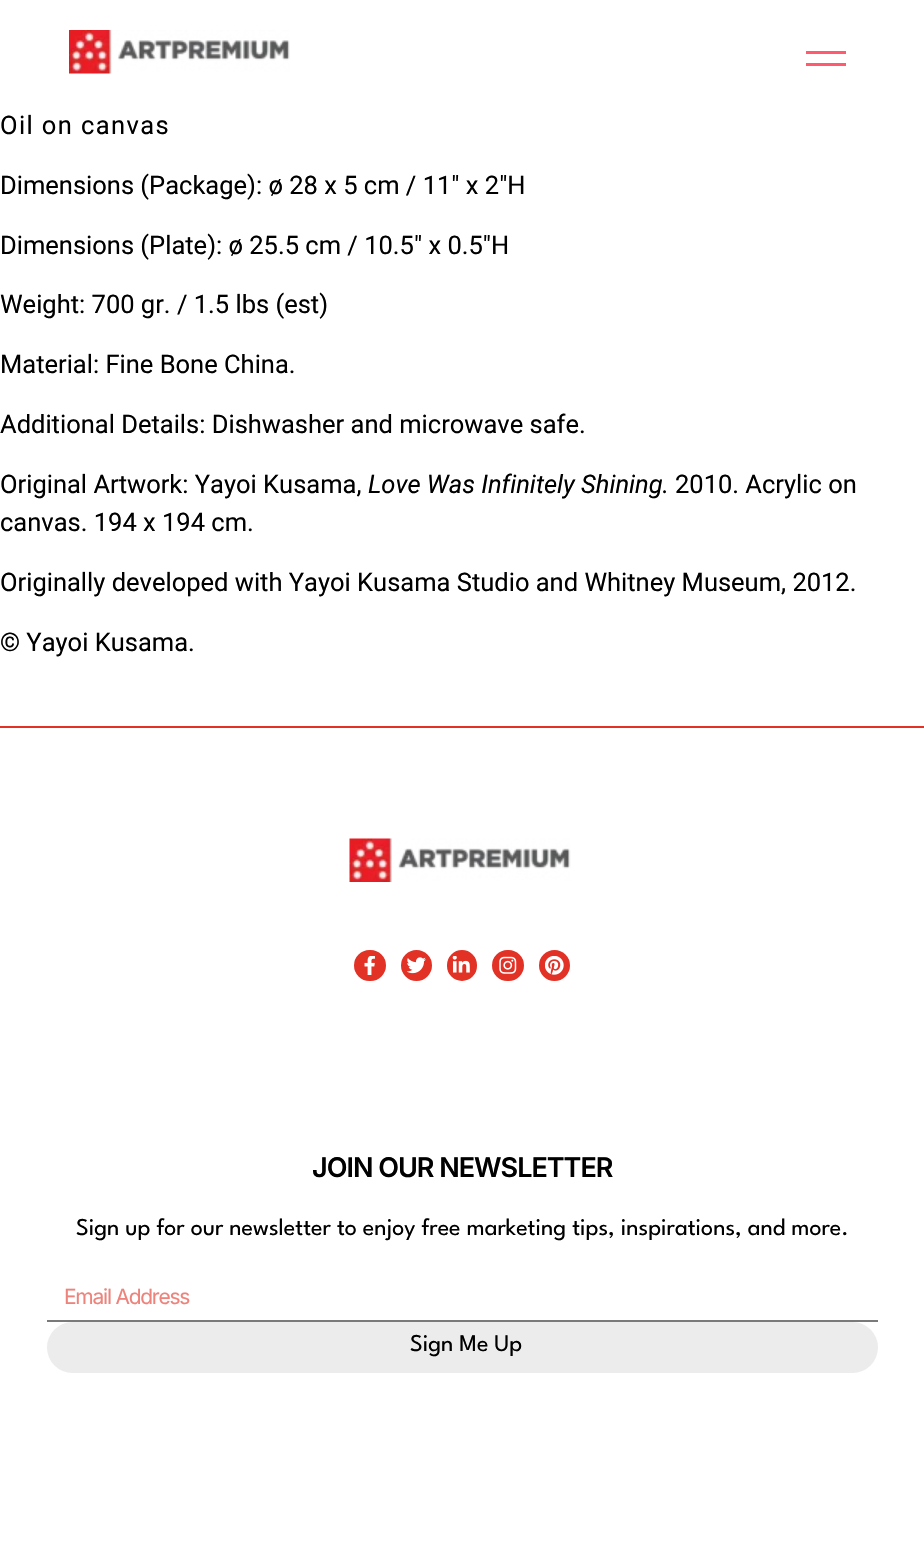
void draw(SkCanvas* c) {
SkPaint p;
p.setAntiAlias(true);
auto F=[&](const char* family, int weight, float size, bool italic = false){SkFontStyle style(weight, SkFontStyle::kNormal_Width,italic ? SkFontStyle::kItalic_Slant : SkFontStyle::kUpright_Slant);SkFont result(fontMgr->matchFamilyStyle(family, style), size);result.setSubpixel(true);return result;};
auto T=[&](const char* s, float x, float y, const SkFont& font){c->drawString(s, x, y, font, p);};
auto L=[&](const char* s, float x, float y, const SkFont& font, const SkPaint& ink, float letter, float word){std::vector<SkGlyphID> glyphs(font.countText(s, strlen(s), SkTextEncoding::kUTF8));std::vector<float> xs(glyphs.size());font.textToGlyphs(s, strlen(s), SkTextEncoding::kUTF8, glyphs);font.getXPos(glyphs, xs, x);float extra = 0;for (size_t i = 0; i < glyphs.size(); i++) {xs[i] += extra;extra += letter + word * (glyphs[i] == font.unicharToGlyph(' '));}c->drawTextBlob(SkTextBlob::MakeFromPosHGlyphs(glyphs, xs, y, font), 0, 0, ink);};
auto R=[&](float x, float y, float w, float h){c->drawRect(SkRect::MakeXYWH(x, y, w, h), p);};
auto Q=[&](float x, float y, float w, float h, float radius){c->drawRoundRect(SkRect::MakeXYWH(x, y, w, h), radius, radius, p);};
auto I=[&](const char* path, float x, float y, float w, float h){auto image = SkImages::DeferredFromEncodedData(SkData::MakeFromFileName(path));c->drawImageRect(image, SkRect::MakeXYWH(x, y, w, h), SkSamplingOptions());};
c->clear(0xffffffff);
I("1.png",69,30,221,44);
p.setColor(0xffff5a6e);
R(806,51,40,3);
R(806,63,40,3);
auto f1 = F("Roboto",400,25.5);
p.setColor(0xff000000);
L("Oil on canvas",0,134,f1,p,1.4,0);
T("Dimensions (Package): ø 28 x 5 cm / 11″ x 2″H",0,194,f1);
T("Dimensions (Plate): ø 25.5 cm / 10.5″ x 0.5″H",0,254,f1);
T("Weight: 700 gr. / 1.5 lbs (est)",0,313,f1);
T("Material: Fine Bone China.",0,373,f1);
T("Additional Details: Dishwasher and microwave safe.",0,433,f1);
T("Original Artwork: Yayoi Kusama,",0,493,f1);
auto f2 = F("Roboto",400,25.5,true);
T("Love Was Infinitely Shining.",368,493,f2);
T("2010. Acrylic on",675,493,f1);
T("canvas. 194 x 194 cm.",0,531,f1);
T("Originally developed with Yayoi Kusama Studio and Whitney Museum, 2012.",0,591,f1);
T("© Yayoi Kusama.",0,651,f1);
p.setColor(0xffe23125);
R(0,726,924,2);
I("2.png",349,838,222,44);
c->drawRoundRect(SkRect::MakeXYWH(355,951,30,29),14.5,14.5,p);
p.setStroke(true);
p.setStrokeWidth(2);
c->drawRoundRect(SkRect::MakeXYWH(355,951,30,29),14.5,14.5,p);
I("3.png",364,956,11,19);
p.setStroke(false);
c->drawCircle(416.5,965.5,14.5,p);
p.setStroke(true);
c->drawCircle(416.5,965.5,14.5,p);
I("4.png",407,957,19,17);
p.setStroke(false);
c->drawRoundRect(SkRect::MakeXYWH(448,951,28,29),14,14,p);
p.setStroke(true);
c->drawRoundRect(SkRect::MakeXYWH(448,951,28,29),14,14,p);
I("5.png",452,956,18,17);
p.setStroke(false);
c->drawRoundRect(SkRect::MakeXYWH(493,951,30,29),14.5,14.5,p);
p.setStroke(true);
c->drawRoundRect(SkRect::MakeXYWH(493,951,30,29),14.5,14.5,p);
I("6.png",499,956,18,18);
p.setStroke(false);
c->drawCircle(554.5,965.5,14.5,p);
p.setStroke(true);
c->drawCircle(554.5,965.5,14.5,p);
I("7.png",545,956,19,19);
auto f3 = F("Inter",600,27);
p.setStroke(false);
p.setColor(0xff000000);
L("JOIN OUR NEWSLETTER",312,1177,f3,p,-1,0);
auto f4 = F("League Spartan",400,24);
T("Sign up for our newsletter to enjoy free marketing tips, inspirations, and more.",76,1235,f4);
p.setColor(0xff7a7a7a);
R(47,1320,831,2);
auto f5 = F("Inter",400,21);
p.setColor(0xffed837b);
L("Email Address",64,1304,f5,p,-1.25,0);
p.setColor(0xffececec);
Q(47,1322,831,51,25.5);
p.setColor(0xff000000);
T("Sign Me Up",410,1351,f4);
}
